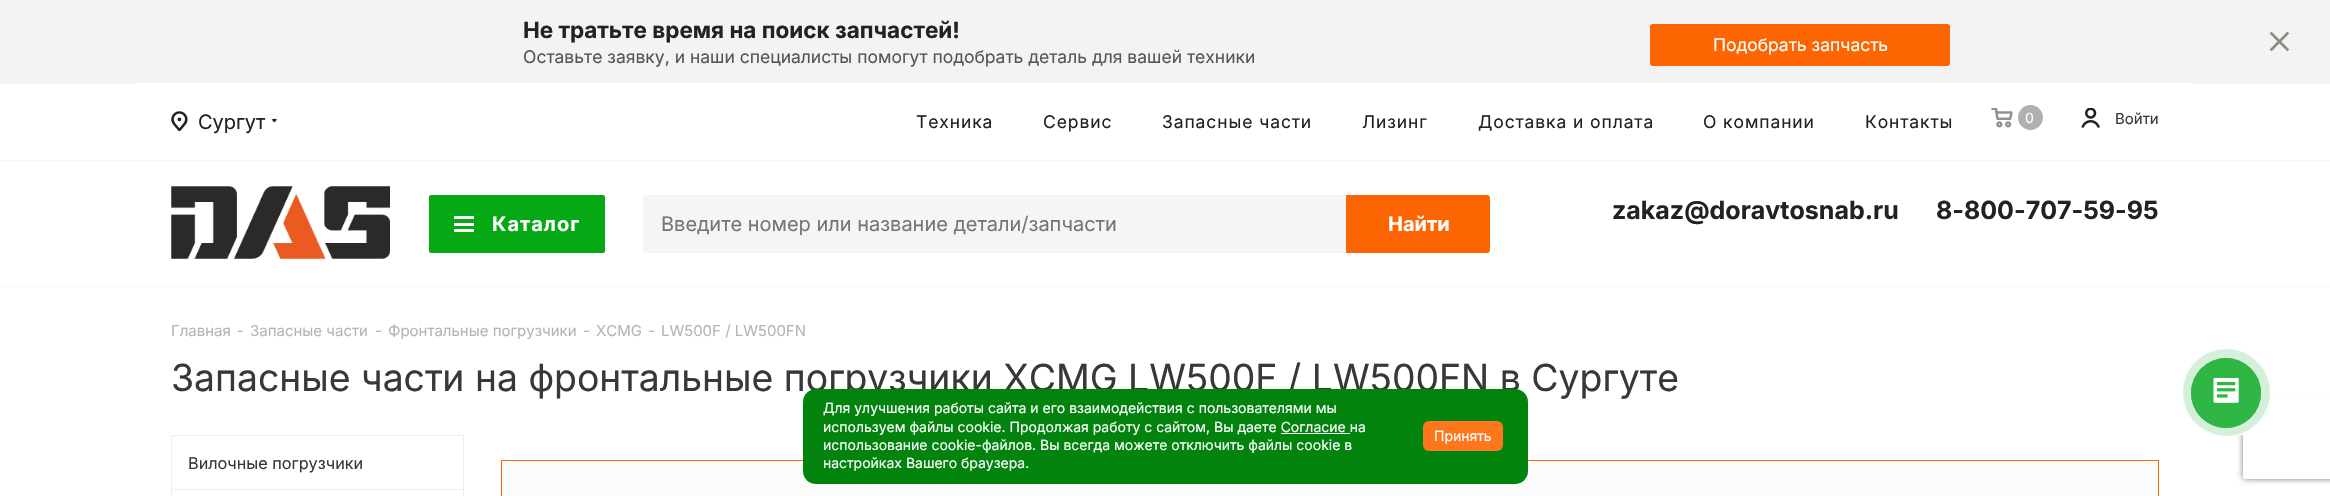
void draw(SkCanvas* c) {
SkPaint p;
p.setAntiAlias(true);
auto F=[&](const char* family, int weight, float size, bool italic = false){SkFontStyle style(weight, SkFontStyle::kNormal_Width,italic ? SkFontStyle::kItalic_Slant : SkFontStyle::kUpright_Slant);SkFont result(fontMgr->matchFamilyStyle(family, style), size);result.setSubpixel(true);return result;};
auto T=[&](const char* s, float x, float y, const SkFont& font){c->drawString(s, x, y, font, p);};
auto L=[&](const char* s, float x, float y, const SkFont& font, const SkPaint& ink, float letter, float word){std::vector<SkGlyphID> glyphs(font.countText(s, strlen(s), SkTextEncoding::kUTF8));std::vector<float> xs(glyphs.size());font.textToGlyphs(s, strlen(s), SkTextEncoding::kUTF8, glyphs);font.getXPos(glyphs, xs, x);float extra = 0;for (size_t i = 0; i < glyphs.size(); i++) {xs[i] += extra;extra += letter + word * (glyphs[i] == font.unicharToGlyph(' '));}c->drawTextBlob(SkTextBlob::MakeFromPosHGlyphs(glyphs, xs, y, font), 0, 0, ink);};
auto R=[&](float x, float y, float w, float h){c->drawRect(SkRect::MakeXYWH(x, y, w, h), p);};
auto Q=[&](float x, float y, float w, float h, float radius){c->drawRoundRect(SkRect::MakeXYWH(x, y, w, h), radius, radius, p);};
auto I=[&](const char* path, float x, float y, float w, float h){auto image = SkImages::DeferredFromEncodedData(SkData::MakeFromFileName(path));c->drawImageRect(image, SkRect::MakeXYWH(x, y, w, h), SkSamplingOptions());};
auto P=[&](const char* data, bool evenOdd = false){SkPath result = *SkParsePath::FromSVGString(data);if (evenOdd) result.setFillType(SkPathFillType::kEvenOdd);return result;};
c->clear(0xffffffff);
p.setColor(0xfff3f3f3);
R(0,0,2330,84);
auto f1 = F("Inter",700,22.5);
p.setColor(0xff222222);
T("Не тратьте время на поиск запчастей!",523,38,f1);
auto f2 = F("Inter",400,17.5);
p.setColor(0xff555555);
T("Оставьте заявку, и наши специалисты помогут подобрать деталь для вашей техники",523,63,f2);
p.setColor(0xfffc6501);
c->drawRoundRect(SkRect::MakeXYWH(1650.5,24.5,299,41),2,2,p);
p.setStroke(true);
p.setStrokeWidth(1);
c->drawRoundRect(SkRect::MakeXYWH(1650.5,24.5,299,41),2,2,p);
p.setStroke(false);
p.setColor(0xffffffff);
T("Подобрать запчасть",1713,51,f2);
auto f3 = F("Inter",300,44);
p.setColor(0xff8b8b83);
T("×",2265,54,f3);
p.setColor(0xfff6f6f6);
R(0,160,2330,1);
p.setColor(0xffffffff);
R(134,83,2062,1);
I("1.png",171,111,17,20);
auto f4 = F("Inter",400,20);
p.setColor(0xff222222);
T("Сургут",198,129,f4);
I("2.png",271,118,6,5);
L("Техника",916,128,f2,p,.9,0);
L("Сервис",1043,128,f2,p,.9,0);
L("Запасные части",1162,128,f2,p,.9,0);
L("Лизинг",1362,128,f2,p,.9,0);
L("Доставка и оплата",1478,128,f2,p,.9,0);
L("О компании",1703,128,f2,p,.9,0);
L("Контакты",1865,128,f2,p,.9,0);
I("3.png",1991,108,22,20);
p.setColor(0xffb0b0b0);
c->drawCircle(2030.5,117.5,12.5,p);
auto f5 = F("Inter",400,14);
p.setColor(0xffffffff);
T("0",2025,123,f5);
I("4.png",2081,108,19,20);
auto f6 = F("Inter",400,15);
p.setColor(0xff383838);
T("Войти",2115,124,f6);
p.setColor(0xfff6f6f6);
R(0,286,2330,1);
I("5.png",171,186,219,73);
auto f7 = F("Inter",700,25);
p.setColor(0xff222222);
T("zakaz@doravtosnab.ru",1612,219,f7);
T("8-800-707-59-95",1936,219,f7);
p.setColor(0xff06a816);
Q(429,195,176,58,2.5);
p.setColor(0xffffffff);
R(454,216,20,3);
R(454,223,20,3);
R(454,229,20,3);
auto f8 = F("Inter",700,20);
L("Каталог",492,231,f8,p,1,0);
p.setColor(0xfff5f5f5);
c->drawPath(P("M645.5 195h844.5v58h-844.5c-1.5 0-2.5-1-2.5-2.5v-53c0-1.5 1-2.5 2.5-2.5z"),p);
p.setColor(0xff757575);
T("Введите номер или название детали/запчасти",661,231,f4);
p.setColor(0xfffc6501);
c->drawPath(P("M1346.5 195.5h141c1 0 2 1 2 2v53c0 1-1 2-2 2h-141z"),p);
p.setStroke(true);
c->drawPath(P("M1346.5 195.5h141c1 0 2 1 2 2v53c0 1-1 2-2 2h-141z"),p);
p.setStroke(false);
p.setColor(0xffffffff);
T("Найти",1388,231,f8);
c->save();
c->clipPath(P("M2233 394h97v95h-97zm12.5 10h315c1.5 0 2.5 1 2.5 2.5v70c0 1.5-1 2.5-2.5 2.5h-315c-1.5 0-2.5-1-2.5-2.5v-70c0-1.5 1-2.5 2.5-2.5z",true),true);
p.setColor(0xff808080);
p.setMaskFilter(SkMaskFilter::MakeBlur(kNormal_SkBlurStyle, 3));
c->drawRoundRect(SkRect::MakeXYWH(2243,404,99,75),2.5,2.5,p);
p.setMaskFilter(nullptr);
c->restore();
p.setColor(0xffffffff);
R(2237,398,93,37);
p.setColor(0xffb6b5b5);
T("Главная",171,336,f6);
T("-",237,336,f6);
T("Запасные части",250,336,f6);
T("-",375,336,f6);
T("Фронтальные погрузчики",388,336,f6);
T("-",583,336,f6);
T("XCMG",596,336,f6);
T("-",648,336,f6);
T("LW500F / LW500FN",661,336,f6);
auto f9 = F("Inter",400,37.35);
p.setColor(0xff383838);
T("Запасные части на фронтальные погрузчики XCMG LW500F / LW500FN в Сургуте",171,391,f9);
p.setColor(0xffebeef1);
R(171,435,293,1);
R(463,435,1,55);
R(171,435,1,55);
auto f10 = F("Inter",400,16.25);
p.setColor(0xff383838);
T("Вилочные погрузчики",188,469,f10);
p.setColor(0xffebeef1);
R(171,489,293,1);
R(463,489,1,7);
R(171,489,1,7);
p.setColor(0xfffbfbfb);
c->drawRect(SkRect::MakeXYWH(501.5,460.5,1657,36),p);
p.setStroke(true);
p.setColor(0xfffc6501);
c->drawRect(SkRect::MakeXYWH(501.5,460.5,1657,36),p);
p.setStroke(false);
p.setColor(0xff02830e);
Q(803,389,725,95,13);
p.setColor(0xffffffff);
T("Для улучшения работы сайта и его взаимодействия с пользователями мы",823,413,f5);
T("используем файлы cookie. Продолжая работу с сайтом, Вы даете Согласие на",823,432,f5);
R(1281,433,69,1);
T("использование cookie-файлов. Вы всегда можете отключить файлы cookie в",823,450,f5);
T("настройках Вашего браузера.",823,468,f5);
p.setColor(0xfffe771d);
Q(1423,421,80,30,6);
p.setColor(0xffffffff);
T("Принять",1434,441,f5);
p.setColor(0xffd5f0da);
c->drawCircle(2226.5,392.5,43.5,p);
p.setStroke(true);
p.setColor(0xff2fb644);
c->drawCircle(2226,393,34.5,p);
p.setStroke(false);
c->drawCircle(2226,393,35,p);
I("6.png",2213,378,26,25);
}
